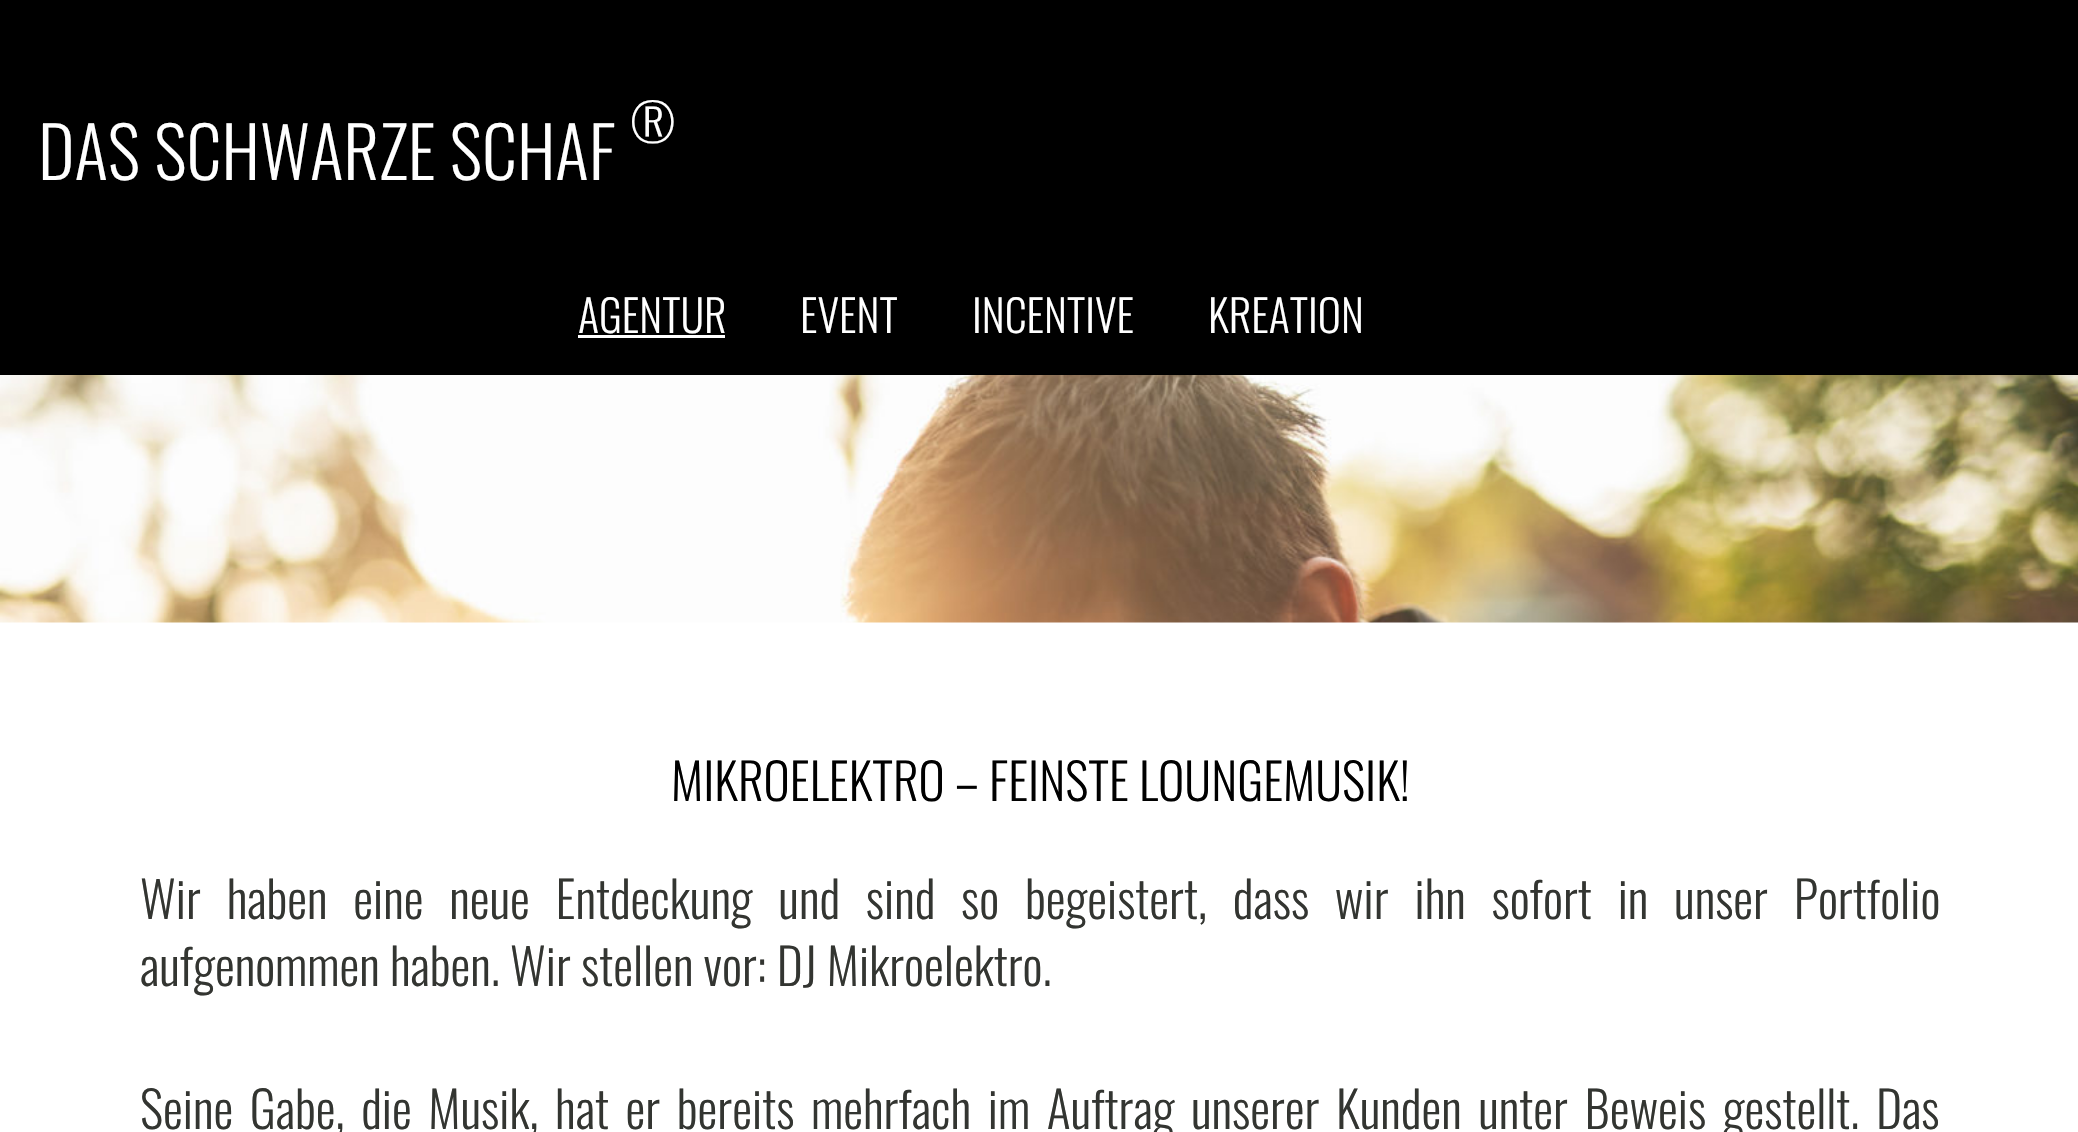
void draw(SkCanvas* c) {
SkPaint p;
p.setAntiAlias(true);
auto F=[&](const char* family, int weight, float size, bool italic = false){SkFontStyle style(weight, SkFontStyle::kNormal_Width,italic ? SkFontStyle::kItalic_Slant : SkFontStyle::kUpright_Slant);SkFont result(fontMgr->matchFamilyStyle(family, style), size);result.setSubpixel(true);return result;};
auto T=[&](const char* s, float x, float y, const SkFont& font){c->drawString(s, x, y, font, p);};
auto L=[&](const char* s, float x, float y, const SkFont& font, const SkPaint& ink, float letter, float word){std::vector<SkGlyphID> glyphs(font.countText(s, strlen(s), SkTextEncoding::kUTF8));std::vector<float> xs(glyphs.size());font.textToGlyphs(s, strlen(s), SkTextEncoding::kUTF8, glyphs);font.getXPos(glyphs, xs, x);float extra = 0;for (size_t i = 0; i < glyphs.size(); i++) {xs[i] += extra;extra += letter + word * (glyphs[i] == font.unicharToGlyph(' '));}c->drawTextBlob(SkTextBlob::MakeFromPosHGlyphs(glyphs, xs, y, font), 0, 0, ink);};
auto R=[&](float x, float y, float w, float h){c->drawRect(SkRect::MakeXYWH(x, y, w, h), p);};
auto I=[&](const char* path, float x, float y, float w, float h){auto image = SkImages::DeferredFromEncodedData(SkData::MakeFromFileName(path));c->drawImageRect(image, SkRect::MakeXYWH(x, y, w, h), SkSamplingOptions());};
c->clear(0xffffffff);
p.setColor(0xff000000);
R(0,0,2078,375);
auto f1 = F("Oswald",300,70);
p.setColor(0xffffffff);
T("DAS SCHWARZE SCHAF",38,180,f1);
auto f2 = F("Oswald",300,52);
T("®",630,143,f2);
auto f3 = F("Oswald",300,44);
T("AGENTUR",578,333,f3);
R(578,335,147,3);
T("EVENT",800,333,f3);
T("INCENTIVE",972,333,f3);
T("KREATION",1208,333,f3);
I("1.png",0,375,2078,248);
auto f4 = F("Oswald",300,50);
p.setColor(0xff000000);
T("MIKROELEKTRO – FEINSTE LOUNGEMUSIK!",671,801,f4);
p.setColor(0xff333531);
L("Wir haben eine neue Entdeckung und sind so begeistert, dass wir ihn sofort in unser Portfolio",140,919,f4,p,0,15.6);
T("aufgenommen haben. Wir stellen vor: DJ Mikroelektro.",140,986,f4);
L("Seine Gabe, die Musik, hat er bereits mehrfach im Auftrag unserer Kunden unter Beweis gestellt. Das",140,1129,f4,p,0,6.4);
}
